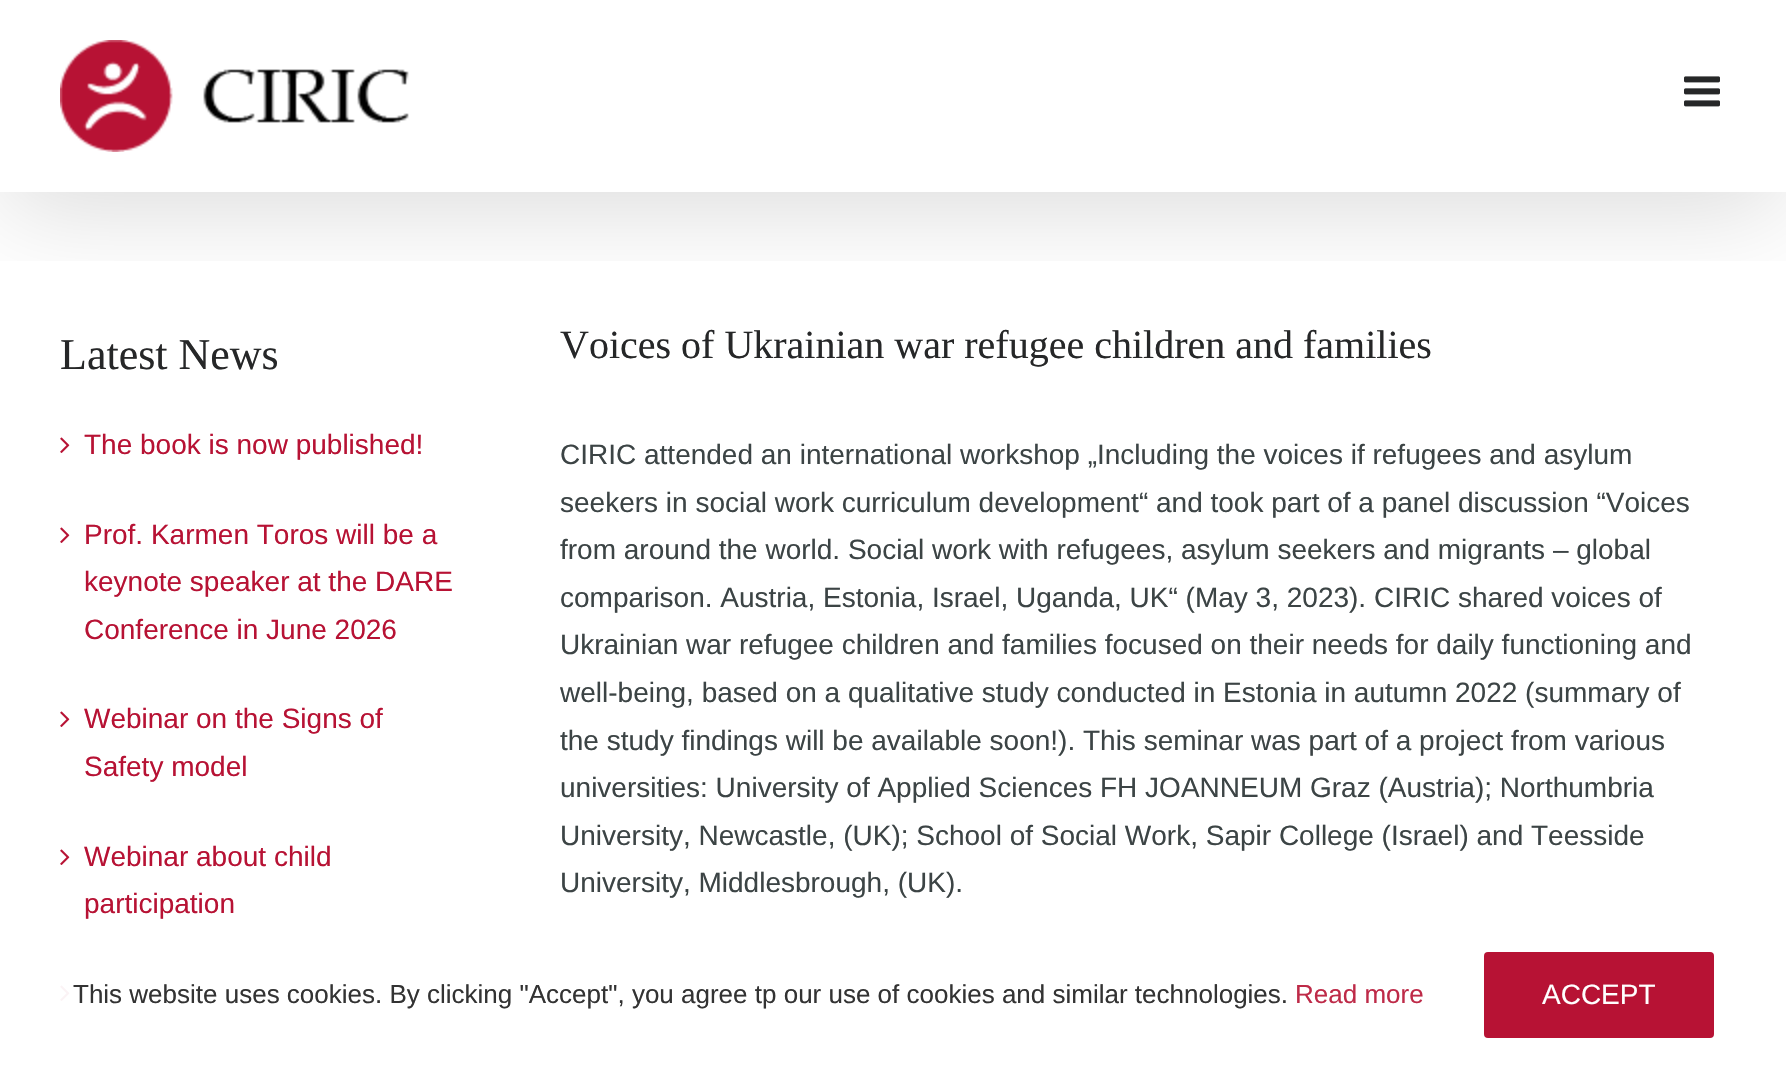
void draw(SkCanvas* c) {
SkPaint p;
p.setAntiAlias(true);
auto F=[&](const char* family, int weight, float size, bool italic = false){SkFontStyle style(weight, SkFontStyle::kNormal_Width,italic ? SkFontStyle::kItalic_Slant : SkFontStyle::kUpright_Slant);SkFont result(fontMgr->matchFamilyStyle(family, style), size);result.setSubpixel(true);return result;};
auto T=[&](const char* s, float x, float y, const SkFont& font){c->drawString(s, x, y, font, p);};
auto Q=[&](float x, float y, float w, float h, float radius){c->drawRoundRect(SkRect::MakeXYWH(x, y, w, h), radius, radius, p);};
auto I=[&](const char* path, float x, float y, float w, float h){auto image = SkImages::DeferredFromEncodedData(SkData::MakeFromFileName(path));c->drawImageRect(image, SkRect::MakeXYWH(x, y, w, h), SkSamplingOptions());};
c->clear(0xffffffff);
c->save();
c->clipRect(SkRect::MakeXYWH(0,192,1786,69));
p.setColor(0x24000000);
p.setMaskFilter(SkMaskFilter::MakeBlur(kNormal_SkBlurStyle, 50));
c->drawRect(SkRect::MakeXYWH(4,24,1778,184),p);
p.setMaskFilter(nullptr);
c->restore();
I("1.png",60,40,349,112);
I("2.png",1684,76,36,31);
auto f1 = F("Liberation Serif",400,44);
p.setColor(0xff262728);
T("Latest News",60,369,f1);
I("3.png",60,437,10,16);
auto f2 = F("Liberation Sans",400,28);
p.setColor(0xffb71234);
T("The book is now published!",84,454,f2);
I("3.png",60,527,10,16);
T("Prof. Karmen Toros will be a",84,544,f2);
T("keynote speaker at the DARE",84,591,f2);
T("Conference in June 2026",84,639,f2);
I("3.png",60,711,10,16);
T("Webinar on the Signs of",84,728,f2);
T("Safety model",84,776,f2);
I("3.png",60,849,10,16);
T("Webinar about child",84,866,f2);
T("participation",84,913,f2);
I("4.png",60,985,10,16);
auto f3 = F("Liberation Serif",400,40);
p.setColor(0xff262728);
T("Voices of Ukrainian war refugee children and families",560,358,f3);
p.setColor(0xff3c4445);
T("CIRIC attended an international workshop „Including the voices if refugees and asylum",560,464,f2);
T("seekers in social work curriculum development“ and took part of a panel discussion “Voices",560,512,f2);
T("from around the world. Social work with refugees, asylum seekers and migrants – global",560,559,f2);
T("comparison. Austria, Estonia, Israel, Uganda, UK“ (May 3, 2023). CIRIC shared voices of",560,607,f2);
T("Ukrainian war refugee children and families focused on their needs for daily functioning and",560,654,f2);
T("well-being, based on a qualitative study conducted in Estonia in autumn 2022 (summary of",560,702,f2);
T("the study findings will be available soon!). This seminar was part of a project from various",560,750,f2);
T("universities: University of Applied Sciences FH JOANNEUM Graz (Austria); Northumbria",560,797,f2);
T("University, Newcastle, (UK); School of Social Work, Sapir College (Israel) and Teesside",560,845,f2);
T("University, Middlesbrough, (UK).",560,892,f2);
auto f4 = F("Liberation Sans",400,26);
p.setColor(0xff333333);
T("This website uses cookies. By clicking \"Accept\", you agree tp our use of cookies and similar technologies.",73,1003,f4);
p.setColor(0xffbe2a48);
T("Read more",1295,1003,f4);
p.setColor(0xffb71234);
Q(1484,952,230,86,4);
p.setColor(0xffffffff);
T("ACCEPT",1542,1004,f2);
}
